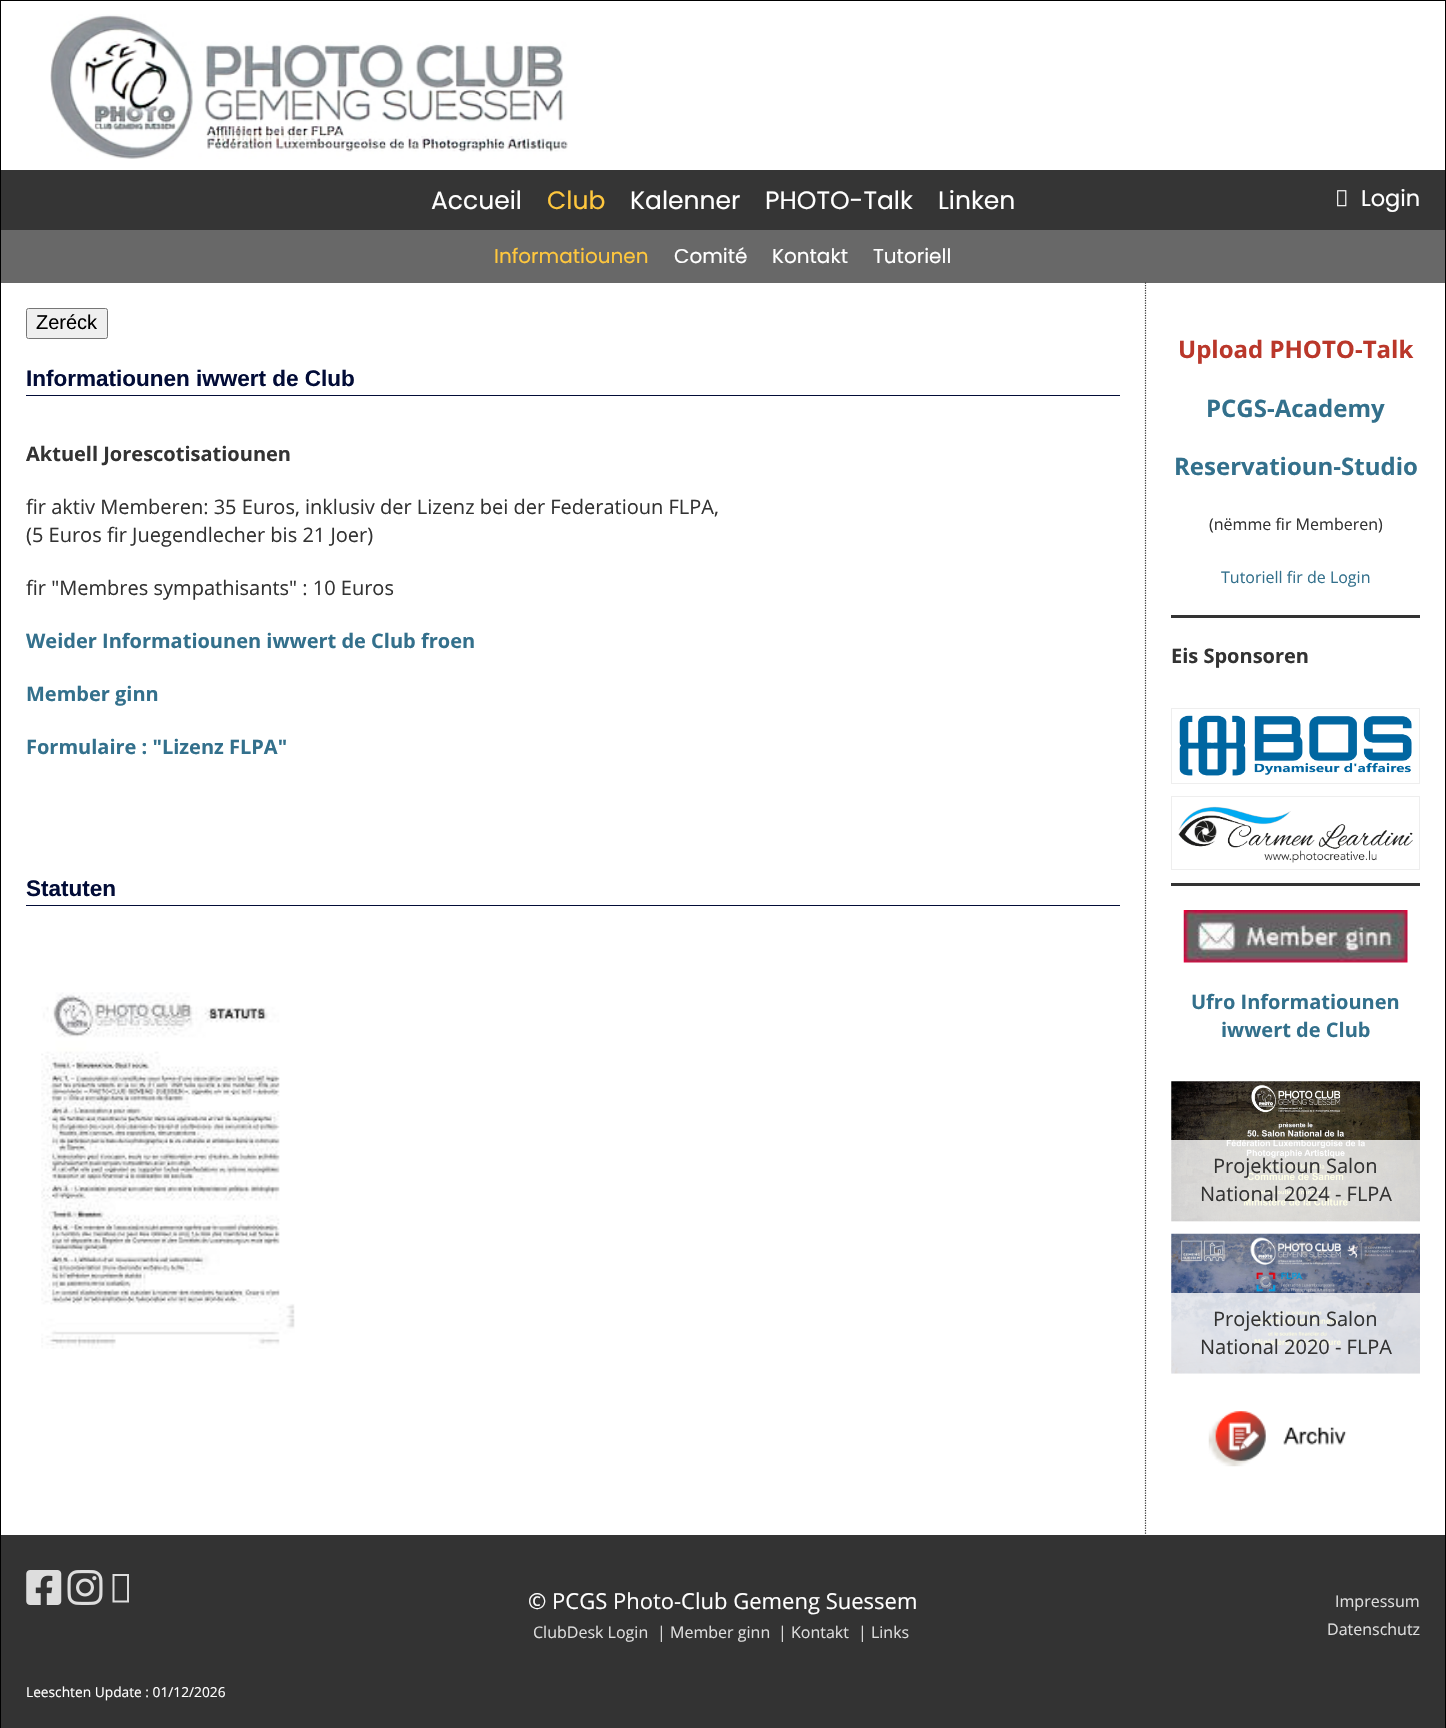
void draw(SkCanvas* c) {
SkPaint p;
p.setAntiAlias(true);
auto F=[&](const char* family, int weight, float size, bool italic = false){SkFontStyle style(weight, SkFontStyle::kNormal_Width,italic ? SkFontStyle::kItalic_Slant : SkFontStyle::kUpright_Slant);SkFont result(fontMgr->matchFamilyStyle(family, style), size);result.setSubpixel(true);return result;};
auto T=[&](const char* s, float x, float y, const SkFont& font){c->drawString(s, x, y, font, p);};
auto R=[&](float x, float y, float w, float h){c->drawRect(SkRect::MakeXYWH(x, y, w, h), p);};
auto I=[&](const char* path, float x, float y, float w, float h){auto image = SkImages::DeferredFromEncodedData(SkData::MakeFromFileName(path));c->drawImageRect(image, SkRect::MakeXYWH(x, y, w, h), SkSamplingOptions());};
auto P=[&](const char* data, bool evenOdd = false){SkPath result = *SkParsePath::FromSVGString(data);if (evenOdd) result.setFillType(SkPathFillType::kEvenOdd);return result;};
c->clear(0xffffffff);
p.setColor(0xff000000);
R(0,0,1446,1);
R(1445,0,1,1728);
R(0,0,1,1728);
I("1.png",50,14,518,145);
p.setColor(0xff353535);
R(1,170,1444,60);
auto f1 = F("Poppins",400,25);
p.setColor(0xffffffff);
T("Accueil",431,209,f1);
p.setColor(0xffffc73d);
T("Club",547,209,f1);
p.setColor(0xffffffff);
T("Kalenner",630,209,f1);
T("PHOTO-Talk",765,209,f1);
T("Linken",938,209,f1);
I("2.png",1337,190,10,17);
auto f2 = F("Poppins",400,22.5);
T("Login",1361,206,f2);
p.setColor(0xff686868);
R(1,230,1444,53);
auto f3 = F("Poppins",400,20);
p.setColor(0xffffc73d);
T("Informatiounen",494,263,f3);
p.setColor(0xffffffff);
T("Comité",674,263,f3);
T("Kontakt",772,263,f3);
T("Tutoriell",873,263,f3);
p.setColor(0xffefefef);
c->drawRoundRect(SkRect::MakeXYWH(26.5,308.5,81,30),2,2,p);
p.setStroke(true);
p.setStrokeWidth(1);
p.setColor(0xff767676);
c->drawRoundRect(SkRect::MakeXYWH(26.5,308.5,81,30),2,2,p);
auto f4 = F("Liberation Sans",400,20);
p.setStroke(false);
p.setColor(0xff000000);
T("Zeréck",36,329,f4);
p.setColor(0xff020c37);
R(26,395,1094,1);
auto f5 = F("Liberation Sans",700,22.5);
T("Informatiounen iwwert de Club",26,386,f5);
auto f6 = F("Open Sans",700,20);
p.setColor(0xff333333);
T("Aktuell Jorescotisatiounen",26,461,f6);
auto f7 = F("Open Sans",400,20);
T("fir aktiv Memberen: 35 Euros, inklusiv der Lizenz bei der Federatioun FLPA,",26,514,f7);
T("(5 Euros fir Juegendlecher bis 21 Joer)",26,542,f7);
T("fir \"Membres sympathisants\" : 10 Euros",26,595,f7);
p.setColor(0xff33708c);
T("Weider Informatiounen iwwert de Club froen",26,648,f6);
T("Member ginn",26,701,f6);
T("Formulaire : \"Lizenz FLPA\"",26,754,f6);
p.setColor(0xff020c37);
R(26,905,1094,1);
T("Statuten",26,896,f5);
I("3.png",41,992,254,357);
p.setStroke(true);
p.setStrokeWidth(1.2);
p.setColor(0xff353535);
p.setPathEffect(SkDashPathEffect::Make({{1.25f,1.25f}}, 0));
c->drawPath(P("M1145.5 282.5v1252.5"),p);
p.setPathEffect(nullptr);
auto f8 = F("Open Sans",700,24);
p.setStroke(false);
p.setColor(0xffba372a);
T("Upload PHOTO-Talk",1178,358,f8);
p.setColor(0xff33708c);
T("PCGS-Academy",1206,417,f8);
T("Reservatioun-Studio",1174,475,f8);
auto f9 = F("Open Sans",400,16);
p.setColor(0xff333333);
T("(nëmme fir Memberen)",1209,530,f9);
p.setColor(0xff33708c);
T("Tutoriell fir de Login",1221,583,f9);
p.setColor(0xff333333);
R(1171,615,249,3);
T("Eis Sponsoren",1171,663,f6);
p.setStroke(true);
p.setStrokeWidth(1);
p.setColor(0xffeeeeee);
c->drawRect(SkRect::MakeXYWH(1171.5,708.5,248,75),p);
I("4.png",1179,715,233,61);
c->drawRect(SkRect::MakeXYWH(1171.5,796.5,248,73),p);
I("5.png",1178,806,235,57);
p.setStroke(false);
p.setColor(0xff333333);
R(1171,883,249,3);
I("6.png",1183,910,225,53);
p.setColor(0xff33708c);
T("Ufro Informatiounen",1191,1009,f6);
T("iwwert de Club",1221,1037,f6);
I("7.png",1171,1081,249,141);
p.setColor(0xccffffff);
R(1171,1140,249,81);
p.setColor(0xff333333);
T("Projektioun Salon",1213,1173,f7);
T("National 2024 - FLPA",1200,1201,f7);
I("8.png",1171,1233,249,141);
p.setColor(0xccffffff);
R(1171,1293,249,81);
p.setColor(0xff333333);
T("Projektioun Salon",1213,1326,f7);
T("National 2020 - FLPA",1200,1354,f7);
I("9.png",1208,1411,139,56);
R(1,1535,1444,193);
I("10.png",26,1570,36,35);
I("11.png",67,1570,36,35);
p.setColor(0xffdddddd);
c->drawPath(P("M112.5 1602.5v-28.5h16.5v28.5zm2-2h12.5v-24.5h-12.5z"),p);
auto f10 = F("Open Sans",400,22);
p.setColor(0xffffffff);
T("© PCGS Photo-Club Gemeng Suessem",528,1609,f10);
p.setColor(0xffdddddd);
T("ClubDesk Login",533,1638,f9);
T("| Member ginn",657,1638,f9);
T("| Kontakt",778,1638,f9);
T("| Links",858,1638,f9);
T("Impressum",1335,1607,f9);
T("Datenschutz",1327,1635,f9);
auto f11 = F("Open Sans",400,13.75);
p.setColor(0xffffffff);
T("Leeschten Update : 01/12/2026",26,1697,f11);
}
